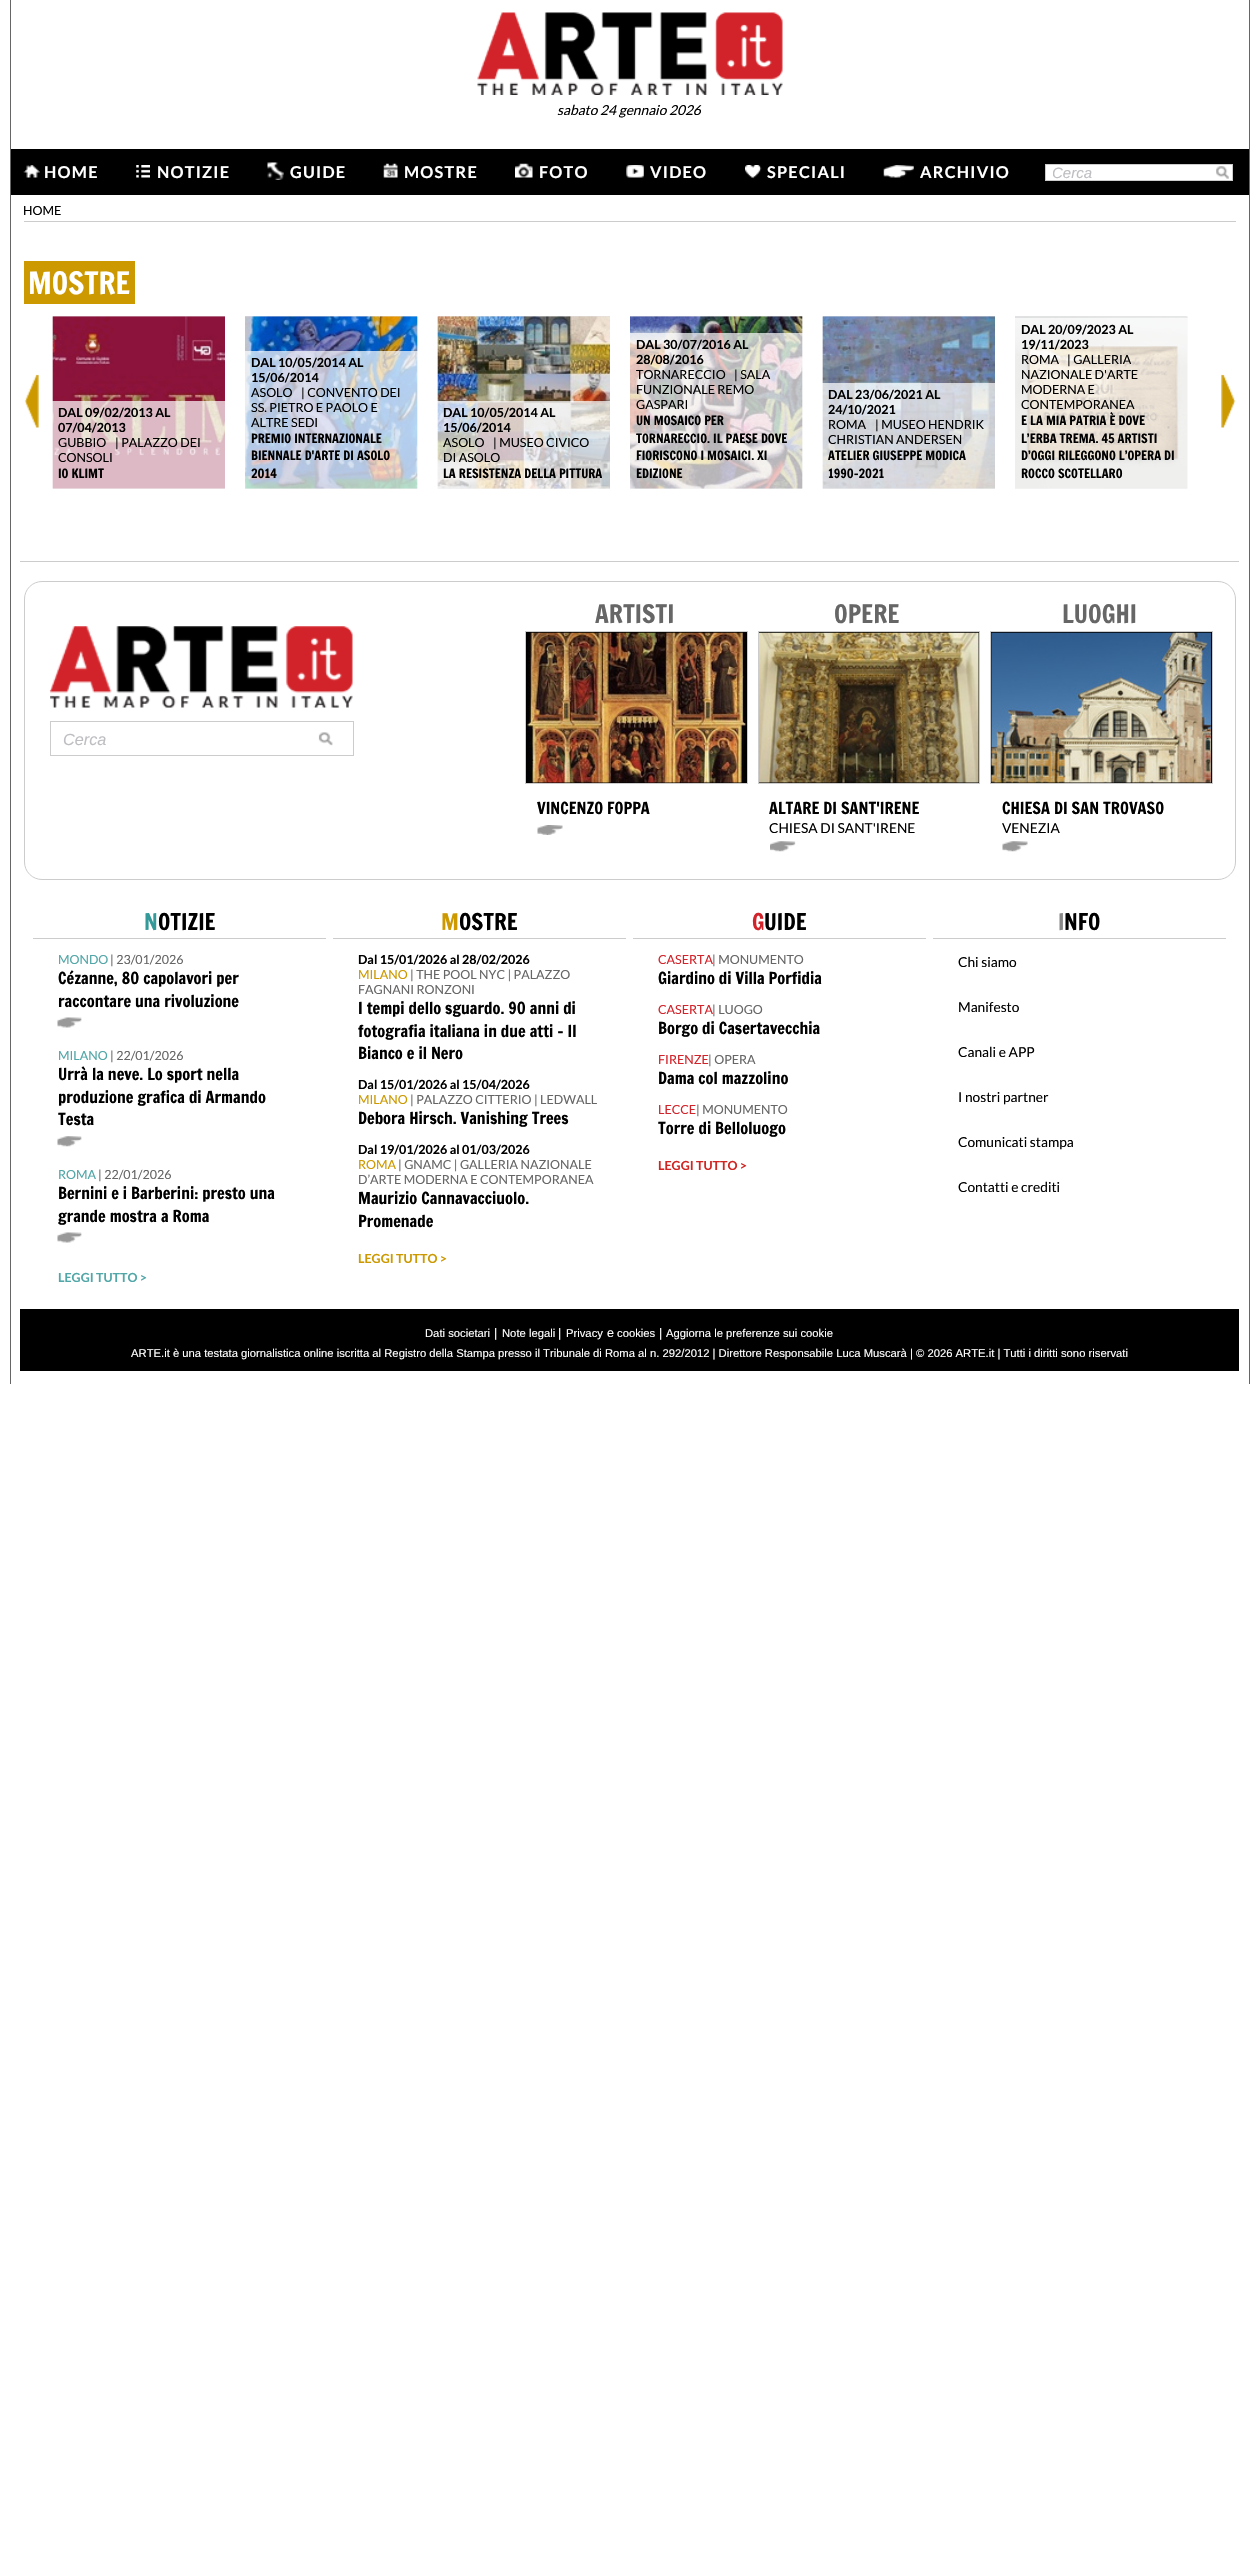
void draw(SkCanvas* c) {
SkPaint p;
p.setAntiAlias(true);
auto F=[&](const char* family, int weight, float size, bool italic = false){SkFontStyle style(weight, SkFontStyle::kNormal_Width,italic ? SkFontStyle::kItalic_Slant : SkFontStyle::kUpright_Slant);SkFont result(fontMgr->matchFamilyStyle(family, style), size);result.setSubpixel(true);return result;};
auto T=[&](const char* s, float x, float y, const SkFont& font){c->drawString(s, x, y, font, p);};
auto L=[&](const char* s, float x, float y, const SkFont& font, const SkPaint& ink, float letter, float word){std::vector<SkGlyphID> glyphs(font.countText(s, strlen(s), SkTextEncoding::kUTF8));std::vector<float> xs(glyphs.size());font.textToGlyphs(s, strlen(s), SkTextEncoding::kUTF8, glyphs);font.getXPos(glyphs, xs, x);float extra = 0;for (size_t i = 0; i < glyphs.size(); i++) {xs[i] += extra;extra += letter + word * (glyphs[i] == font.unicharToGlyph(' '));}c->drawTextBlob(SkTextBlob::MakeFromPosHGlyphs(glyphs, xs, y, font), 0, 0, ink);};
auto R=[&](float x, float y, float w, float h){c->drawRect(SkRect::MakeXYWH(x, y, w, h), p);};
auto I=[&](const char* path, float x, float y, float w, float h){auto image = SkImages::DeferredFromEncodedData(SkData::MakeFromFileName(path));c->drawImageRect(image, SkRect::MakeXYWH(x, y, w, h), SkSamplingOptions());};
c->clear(0xffffffff);
I("1.png",477,12,306,83);
auto f1 = F("Lato",400,13.75,true);
p.setColor(0xff000000);
T("sabato 24 gennaio 2026",557,115,f1);
R(11,149,1238,46);
I("2.png",23,165,17,13);
auto f2 = F("Lato",700,16.25);
p.setColor(0xffffffff);
L("HOME",44,178,f2,p,1.25,0);
I("3.png",136,165,14,13);
L("NOTIZIE",157,178,f2,p,1.25,0);
I("4.png",267,162,17,18);
L("GUIDE",290,178,f2,p,1.25,0);
I("5.png",383,163,15,15);
L("MOSTRE",404,178,f2,p,1.25,0);
I("6.png",515,163,18,15);
L("FOTO",539,178,f2,p,1.25,0);
I("7.png",626,165,18,13);
L("VIDEO",650,178,f2,p,1.25,0);
I("8.png",745,165,17,14);
L("SPECIALI",767,178,f2,p,1.25,0);
I("9.png",883,165,31,13);
L("ARCHIVIO",920,178,f2,p,1.25,0);
c->drawRect(SkRect::MakeXYWH(1045.5,164.5,187,16),p);
p.setStroke(true);
p.setStrokeWidth(1);
p.setColor(0xffcccccc);
c->drawRect(SkRect::MakeXYWH(1045.5,164.5,187,16),p);
c->save();
c->clipRect(SkRect::MakeXYWH(1053,165,178,15));
auto f3 = F("Liberation Sans",400,15,true);
p.setStroke(false);
p.setColor(0xffbebdc1);
T("Cerca",1052,178,f3);
c->restore();
I("10.png",1216,166,13,13);
p.setColor(0xff666666);
R(1249,0,1,1384);
R(10,0,1,1384);
p.setColor(0xffcccccc);
R(24,221,1212,1);
auto f4 = F("Lato",400,12.5);
p.setColor(0xff000000);
T("HOME",23,215,f4);
p.setColor(0xffcc9900);
R(24,261,111,43);
auto f5 = F("Francois One",400,30);
p.setColor(0xffffffff);
T("MOSTRE",28,294,f5);
I("11.png",24,374,15,54);
I("12.png",52,316,173,173);
I("13.png",52,316,173,173);
p.setColor(0xb3ffffff);
R(52,401,173,88);
auto f6 = F("Lato",700,12.5);
p.setColor(0xff000000);
T("DAL 09/02/2013 AL",58,417,f6);
T("07/04/2013",58,432,f6);
T("GUBBIO",58,447,f4);
T("| PALAZZO DEI",115,447,f4);
T("CONSOLI",58,462,f4);
auto f7 = F("Francois One",400,12.5);
T("IO KLIMT",58,478,f7);
I("14.png",245,316,173,173);
I("15.png",245,316,173,173);
p.setColor(0xb3ffffff);
R(245,351,173,138);
p.setColor(0xff000000);
T("DAL 10/05/2014 AL",251,367,f6);
T("15/06/2014",251,382,f6);
T("ASOLO",251,397,f4);
T("| CONVENTO DEI",301,397,f4);
T("SS. PIETRO E PAOLO E",251,412,f4);
T("ALTRE SEDI",251,427,f4);
T("PREMIO INTERNAZIONALE",251,443,f7);
T("BIENNALE D'ARTE DI ASOLO",251,460,f7);
T("2014",251,478,f7);
I("16.png",437,316,173,173);
I("17.png",437,316,173,173);
p.setColor(0xb3ffffff);
R(437,401,173,88);
p.setColor(0xff000000);
T("DAL 10/05/2014 AL",443,417,f6);
T("15/06/2014",443,432,f6);
T("ASOLO",443,447,f4);
T("| MUSEO CIVICO",493,447,f4);
T("DI ASOLO",443,462,f4);
T("LA RESISTENZA DELLA PITTURA",443,478,f7);
I("18.png",630,316,173,173);
I("19.png",630,316,173,173);
T("DAL 30/07/2016 AL",636,349,f6);
T("28/08/2016",636,364,f6);
T("TORNARECCIO",636,379,f4);
T("| SALA",734,379,f4);
T("FUNZIONALE REMO",636,394,f4);
T("GASPARI",636,409,f4);
T("UN MOSAICO PER",636,425,f7);
T("TORNARECCIO. IL PAESE DOVE",636,443,f7);
T("FIORISCONO I MOSAICI. XI",636,460,f7);
T("EDIZIONE",636,478,f7);
I("12.png",822,316,173,173);
I("20.png",822,316,173,173);
p.setColor(0xb3ffffff);
R(822,383,173,106);
p.setColor(0xff000000);
T("DAL 23/06/2021 AL",828,399,f6);
T("24/10/2021",828,414,f6);
T("ROMA",828,429,f4);
T("| MUSEO HENDRIK",875,429,f4);
T("CHRISTIAN ANDERSEN",828,444,f4);
T("ATELIER GIUSEPPE MODICA",828,460,f7);
T("1990-2021",828,478,f7);
I("21.png",1015,316,173,173);
I("22.png",1015,316,173,173);
T("DAL 20/09/2023 AL",1021,334,f6);
T("19/11/2023",1021,349,f6);
T("ROMA",1021,364,f4);
T("| GALLERIA",1067,364,f4);
T("NAZIONALE D'ARTE",1021,379,f4);
T("MODERNA E",1021,394,f4);
T("CONTEMPORANEA",1021,409,f4);
T("E LA MIA PATRIA È DOVE",1021,425,f7);
T("L’ERBA TREMA. 45 ARTISTI",1021,443,f7);
T("D’OGGI RILEGGONO L’OPERA DI",1021,460,f7);
T("ROCCO SCOTELLARO",1021,478,f7);
I("23.png",1221,374,15,54);
p.setColor(0xffcccccc);
R(20,561,1219,1);
p.setStroke(true);
c->drawRoundRect(SkRect::MakeXYWH(24.5,581.5,1211,298),17.5,17.5,p);
I("24.png",50,626,303,82);
c->drawRect(SkRect::MakeXYWH(50.5,721.5,303,34),p);
auto f8 = F("Liberation Sans",400,16.25,true);
p.setStroke(false);
p.setColor(0xffbebdc1);
T("Cerca",63,745,f8);
I("25.png",318,732,15,14);
auto f9 = F("Francois One",400,25);
p.setColor(0xff666666);
T("ARTISTI",595,623,f9);
p.setColor(0xff000000);
c->drawRect(SkRect::MakeXYWH(525.5,631.5,222,152),p);
p.setStroke(true);
p.setColor(0xffcccccc);
c->drawRect(SkRect::MakeXYWH(525.5,631.5,222,152),p);
I("26.png",526,632,220,151);
auto f10 = F("Francois One",400,16.25);
p.setStroke(false);
p.setColor(0xff000000);
T("VINCENZO FOPPA",537,814,f10);
I("27.png",537,825,26,10);
p.setColor(0xff666666);
T("OPERE",834,623,f9);
p.setColor(0xff000000);
c->drawRect(SkRect::MakeXYWH(758.5,631.5,221,152),p);
p.setStroke(true);
p.setColor(0xffcccccc);
c->drawRect(SkRect::MakeXYWH(758.5,631.5,221,152),p);
I("28.png",759,632,220,151);
p.setStroke(false);
p.setColor(0xff000000);
T("ALTARE DI SANT'IRENE",769,814,f10);
auto f11 = F("Lato",400,13.75);
T("CHIESA DI SANT'IRENE",769,833,f11);
I("29.png",770,841,26,11);
p.setColor(0xff666666);
T("LUOGHI",1062,623,f9);
p.setColor(0xff000000);
c->drawRect(SkRect::MakeXYWH(990.5,631.5,222,152),p);
p.setStroke(true);
p.setColor(0xffcccccc);
c->drawRect(SkRect::MakeXYWH(990.5,631.5,222,152),p);
I("30.png",991,632,221,151);
p.setStroke(false);
p.setColor(0xff000000);
T("CHIESA DI SAN TROVASO",1002,814,f10);
T("VENEZIA",1002,833,f11);
I("31.png",1002,841,26,11);
p.setColor(0xffcccccc);
R(33,938,293,1);
auto f12 = F("Francois One",400,22.5);
p.setColor(0xff339999);
T("N",144,930,f12);
p.setColor(0xff000000);
T("OTIZIE",158,930,f12);
p.setColor(0xff51a6a7);
T("MONDO",58,964,f4);
p.setColor(0xff666666);
T("| 23/01/2026",110,964,f4);
p.setColor(0xff000000);
T("Cézanne, 80 capolavori per",58,984,f10);
T("raccontare una rivoluzione",58,1007,f10);
I("32.png",57,1017,25,11);
p.setColor(0xff51a6a7);
T("MILANO",58,1060,f4);
p.setColor(0xff666666);
T("| 22/01/2026",110,1060,f4);
p.setColor(0xff000000);
T("Urrà la neve. Lo sport nella",58,1080,f10);
T("produzione grafica di Armando",58,1103,f10);
T("Testa",58,1125,f10);
I("33.png",57,1136,25,11);
p.setColor(0xff51a6a7);
T("ROMA",58,1179,f4);
p.setColor(0xff666666);
T("| 22/01/2026",98,1179,f4);
p.setColor(0xff000000);
T("Bernini e i Barberini: presto una",58,1199,f10);
T("grande mostra a Roma",58,1222,f10);
I("32.png",57,1232,25,11);
p.setColor(0xff51a6a7);
T("LEGGI TUTTO >",58,1282,f6);
p.setColor(0xffcccccc);
R(333,938,293,1);
p.setColor(0xffcc9900);
T("M",441,930,f12);
p.setColor(0xff000000);
T("OSTRE",459,930,f12);
T("Dal 15/01/2026 al 28/02/2026",358,964,f6);
p.setColor(0xffcc9900);
T("MILANO",358,979,f4);
p.setColor(0xff666666);
T("| THE POOL NYC | PALAZZO",410,979,f4);
T("FAGNANI RONZONI",358,994,f4);
p.setColor(0xff000000);
T("I tempi dello sguardo. 90 anni di",358,1014,f10);
T("fotografia italiana in due atti - Il",358,1037,f10);
T("Bianco e il Nero",358,1059,f10);
T("Dal 15/01/2026 al 15/04/2026",358,1089,f6);
p.setColor(0xffcc9900);
T("MILANO",358,1104,f4);
p.setColor(0xff666666);
T("| PALAZZO CITTERIO | LEDWALL",410,1104,f4);
p.setColor(0xff000000);
T("Debora Hirsch. Vanishing Trees",358,1124,f10);
T("Dal 19/01/2026 al 01/03/2026",358,1154,f6);
p.setColor(0xffcc9900);
T("ROMA",358,1169,f4);
p.setColor(0xff666666);
T("| GNAMC | GALLERIA NAZIONALE",398,1169,f4);
T("D’ARTE MODERNA E CONTEMPORANEA",358,1184,f4);
p.setColor(0xff000000);
T("Maurizio Cannavacciuolo.",358,1204,f10);
T("Promenade",358,1227,f10);
p.setColor(0xffcc9900);
T("LEGGI TUTTO >",358,1263,f6);
p.setColor(0xffcccccc);
R(633,938,293,1);
p.setColor(0xffd2232a);
T("G",752,930,f12);
p.setColor(0xff000000);
T("UIDE",764,930,f12);
p.setColor(0xffd2232a);
T("CASERTA",658,964,f4);
p.setColor(0xff666666);
T("| MONUMENTO",712,964,f4);
p.setColor(0xff000000);
T("Giardino di Villa Porfidia",658,984,f10);
p.setColor(0xffd2232a);
T("CASERTA",658,1014,f4);
p.setColor(0xff666666);
T("| LUOGO",712,1014,f4);
p.setColor(0xff000000);
T("Borgo di Casertavecchia",658,1034,f10);
p.setColor(0xffd2232a);
T("FIRENZE",658,1064,f4);
p.setColor(0xff666666);
T("| OPERA",708,1064,f4);
p.setColor(0xff000000);
T("Dama col mazzolino",658,1084,f10);
p.setColor(0xffd2232a);
T("LECCE",658,1114,f4);
p.setColor(0xff666666);
T("| MONUMENTO",696,1114,f4);
p.setColor(0xff000000);
T("Torre di Belloluogo",658,1134,f10);
p.setColor(0xffd12522);
T("LEGGI TUTTO >",658,1170,f6);
p.setColor(0xffcccccc);
R(933,938,293,1);
p.setColor(0xff888888);
T("I",1058,930,f12);
p.setColor(0xff000000);
T("NFO",1064,930,f12);
T("Chi siamo",958,967,f11);
T("Manifesto",958,1012,f11);
T("Canali e APP",958,1057,f11);
T("I nostri partner",958,1102,f11);
T("Comunicati stampa",958,1147,f11);
T("Contatti e crediti",958,1192,f11);
R(20,1309,1219,62);
auto f13 = F("Liberation Sans",400,11.25);
p.setColor(0xffffffff);
T("Dati societari",425,1337,f13);
auto f14 = F("Liberation Sans",400,12.5);
T("|",494,1337,f14);
T("Note legali",502,1337,f13);
T("|",558,1337,f14);
T("Privacy",566,1337,f13);
T("e",607,1337,f14);
T("cookies",617,1337,f13);
T("|",659,1337,f14);
T("Aggiorna le preferenze sui cookie",666,1337,f13);
T("ARTE.it è una testata giornalistica online iscritta al Registro della Stampa presso il Tribunale di Roma al n. 292/2012 | Direttore Responsabile Luca Muscarà | © 2026 ARTE.it | Tutti i diritti sono riservati",131,1357,f13);
}
